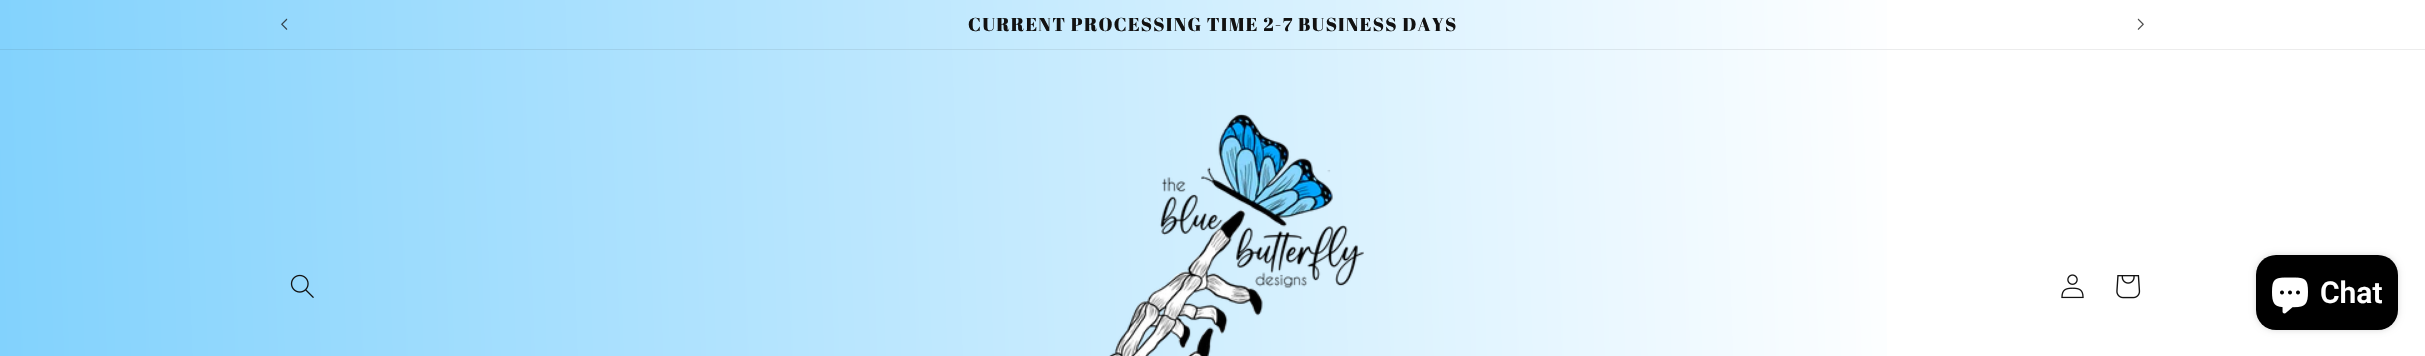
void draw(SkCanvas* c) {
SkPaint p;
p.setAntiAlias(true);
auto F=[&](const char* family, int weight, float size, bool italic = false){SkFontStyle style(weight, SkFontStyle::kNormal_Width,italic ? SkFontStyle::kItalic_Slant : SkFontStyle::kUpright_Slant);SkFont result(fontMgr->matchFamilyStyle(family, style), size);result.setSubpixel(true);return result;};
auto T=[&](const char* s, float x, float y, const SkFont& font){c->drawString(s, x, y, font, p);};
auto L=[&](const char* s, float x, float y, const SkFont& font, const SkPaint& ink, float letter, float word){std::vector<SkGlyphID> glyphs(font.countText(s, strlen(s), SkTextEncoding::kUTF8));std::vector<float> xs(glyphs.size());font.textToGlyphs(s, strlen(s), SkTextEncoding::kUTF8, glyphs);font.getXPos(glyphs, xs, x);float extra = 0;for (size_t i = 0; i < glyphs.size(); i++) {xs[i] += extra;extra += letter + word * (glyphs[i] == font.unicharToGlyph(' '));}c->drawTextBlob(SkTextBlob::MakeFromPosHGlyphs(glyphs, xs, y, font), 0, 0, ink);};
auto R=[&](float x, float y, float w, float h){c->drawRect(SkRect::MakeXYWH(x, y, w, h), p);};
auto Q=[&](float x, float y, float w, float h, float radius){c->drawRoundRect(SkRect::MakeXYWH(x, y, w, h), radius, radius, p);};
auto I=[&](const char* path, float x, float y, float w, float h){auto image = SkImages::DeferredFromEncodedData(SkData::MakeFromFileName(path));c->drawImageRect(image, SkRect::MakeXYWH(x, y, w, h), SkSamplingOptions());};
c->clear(0xffffffff);
{
const SkColor colors[] = {0xff82d2fd,0xffffffff,0xffffffff};
const float stops[] = {0,.79,.97};
const SkPoint ends[] = {{-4.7,221}, {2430,136}};
p.setShader(SkGradientShader::MakeLinear(ends, colors, stops, 3, SkTileMode::kClamp));
p.setAlpha(255);
}
R(0,0,1887,356);
{
const SkColor colors[] = {0xff79c3ea,0xffececec,0xffececec};
const float stops[] = {0,.79,.97};
const SkPoint ends[] = {{-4.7,221}, {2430,136}};
p.setShader(SkGradientShader::MakeLinear(ends, colors, stops, 3, SkTileMode::kClamp));
p.setAlpha(255);
}
R(0,49,2425,1);
I("1.png",281,18,7,12);
auto f1 = F("Abril Fatface",400,18.7);
p.setShader(nullptr);
p.setColor(0xff121212);
L("CURRENT PROCESSING TIME 2-7 BUSINESS DAYS",968,31,f1,p,1.25,0);
I("2.png",2137,18,7,12);
I("3.png",290,274,24,24);
I("4.png",1109,114,255,242);
I("5.png",2061,274,23,25);
I("6.png",2116,275,25,24);
p.setColor(0x26000000);
p.setMaskFilter(SkMaskFilter::MakeBlur(kNormal_SkBlurStyle, 3));
c->drawRoundRect(SkRect::MakeXYWH(2256,255,142,75),20,20,p);
p.setMaskFilter(nullptr);
p.setColor(0xff000000);
Q(2256,255,142,75,20);
I("7.png",2272,277,36,37);
auto f2 = F("Roboto",600,30);
p.setColor(0xffffffff);
T("Chat",2320,303,f2);
}
